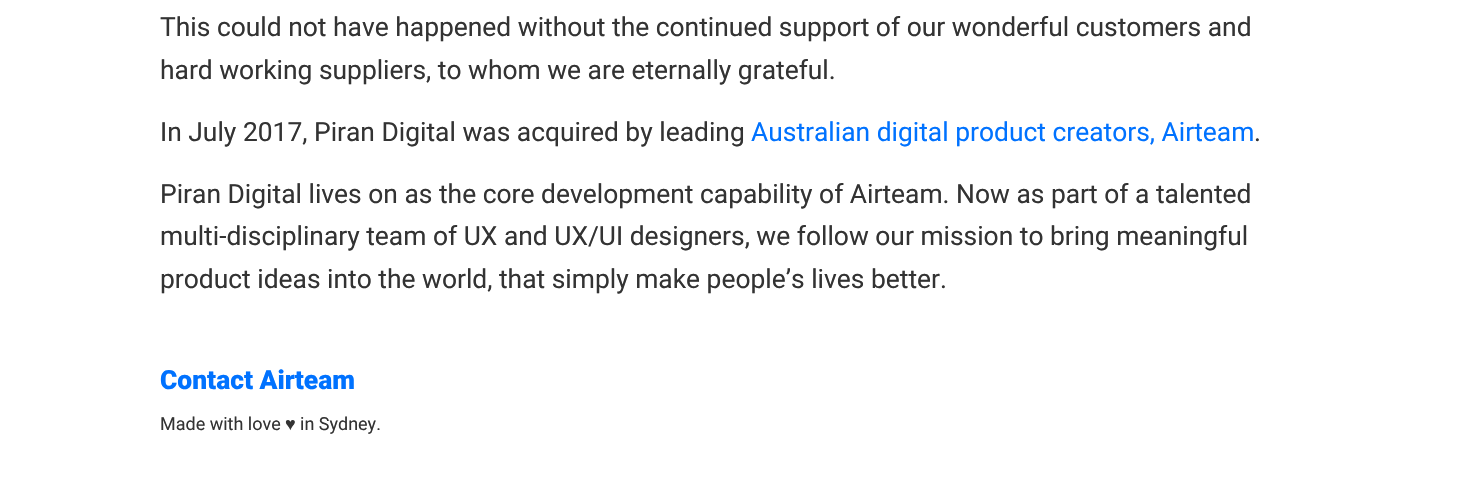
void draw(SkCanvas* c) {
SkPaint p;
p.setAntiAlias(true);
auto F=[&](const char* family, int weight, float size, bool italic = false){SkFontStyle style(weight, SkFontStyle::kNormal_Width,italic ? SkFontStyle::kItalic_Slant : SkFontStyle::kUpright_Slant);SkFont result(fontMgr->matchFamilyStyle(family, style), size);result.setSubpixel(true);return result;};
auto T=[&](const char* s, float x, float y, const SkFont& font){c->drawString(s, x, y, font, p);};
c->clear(0xffffffff);
auto f1 = F("Roboto",400,26.4);
p.setColor(0xff333333);
T("This could not have happened without the continued support of our wonderful customers and",160,36,f1);
T("hard working suppliers, to whom we are eternally grateful.",160,79,f1);
T("In July 2017, Piran Digital was acquired by leading",160,141,f1);
p.setColor(0xff0072ff);
T("Australian digital product creators, Airteam",751,141,f1);
p.setColor(0xff333333);
T(".",1254,141,f1);
T("Piran Digital lives on as the core development capability of Airteam. Now as part of a talented",160,203,f1);
T("multi-disciplinary team of UX and UX/UI designers, we follow our mission to bring meaningful",160,245,f1);
T("product ideas into the world, that simply make people’s lives better.",160,288,f1);
auto f2 = F("Roboto",900,26.4);
p.setColor(0xff0072ff);
T("Contact Airteam",160,389,f2);
auto f3 = F("Roboto",400,18);
p.setColor(0xff333333);
T("Made with love",160,430,f3);
auto f4 = F("Liberation Sans",400,18);
T("♥",285,430,f4);
T("in Sydney.",300,430,f3);
}
